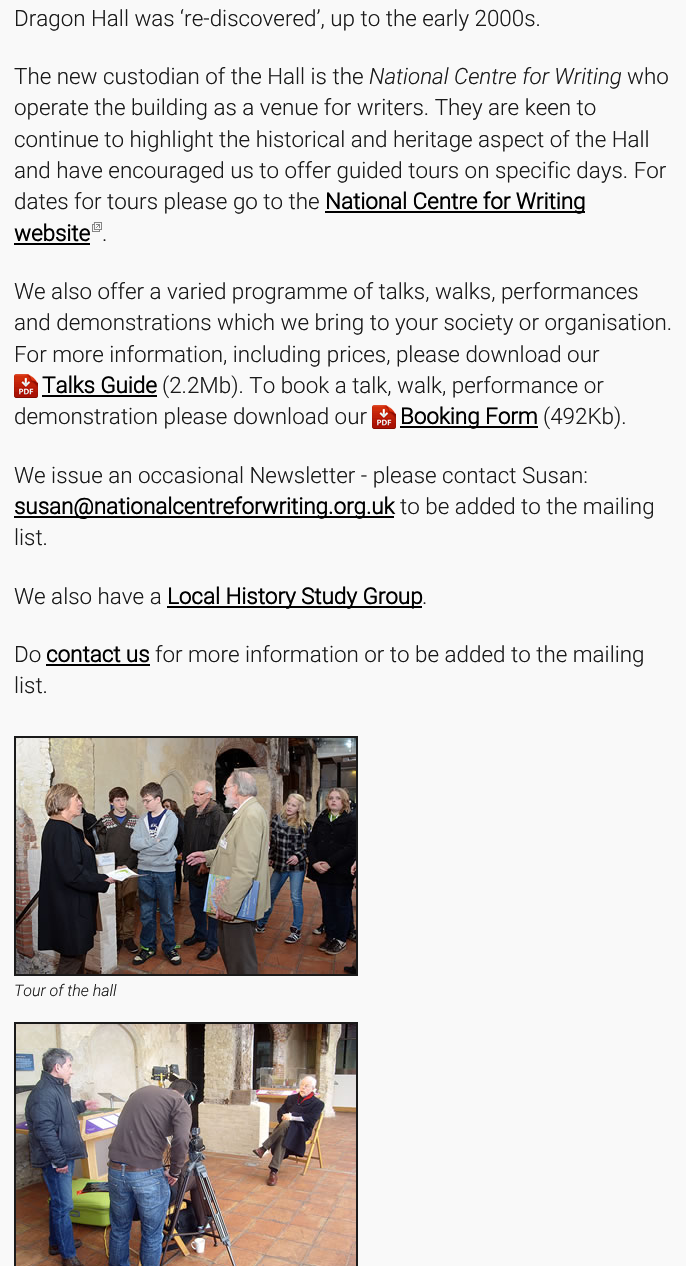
void draw(SkCanvas* c) {
SkPaint p;
p.setAntiAlias(true);
auto F=[&](const char* family, int weight, float size, bool italic = false){SkFontStyle style(weight, SkFontStyle::kNormal_Width,italic ? SkFontStyle::kItalic_Slant : SkFontStyle::kUpright_Slant);SkFont result(fontMgr->matchFamilyStyle(family, style), size);result.setSubpixel(true);return result;};
auto T=[&](const char* s, float x, float y, const SkFont& font){c->drawString(s, x, y, font, p);};
auto R=[&](float x, float y, float w, float h){c->drawRect(SkRect::MakeXYWH(x, y, w, h), p);};
auto I=[&](const char* path, float x, float y, float w, float h){auto image = SkImages::DeferredFromEncodedData(SkData::MakeFromFileName(path));c->drawImageRect(image, SkRect::MakeXYWH(x, y, w, h), SkSamplingOptions());};
c->clear(0xfff9f9f9);
auto f1 = F("Roboto",300,22.4);
p.setColor(0xff1a1a1a);
T("Dragon Hall was ‘re-discovered’, up to the early 2000s.",14,26,f1);
T("The new custodian of the Hall is the",14,84,f1);
auto f2 = F("Roboto",300,22.4,true);
T("National Centre for Writing",369,84,f2);
T("who",627,84,f1);
T("operate the building as a venue for writers. They are keen to",14,115,f1);
T("continue to highlight the historical and heritage aspect of the Hall",14,147,f1);
T("and have encouraged us to offer guided tours on specific days. For",14,178,f1);
T("dates for tours please go to the",14,209,f1);
p.setColor(0xff000000);
R(325,211,260,2);
auto f3 = F("Roboto",700,22.4);
T("National Centre for Writing",325,209,f3);
T("website",14,241,f3);
R(14,243,76,2);
I("1.png",92,222,10,10);
p.setColor(0xff1a1a1a);
T(".",102,241,f1);
T("We also offer a varied programme of talks, walks, performances",14,299,f1);
T("and demonstrations which we bring to your society or organisation.",14,330,f1);
T("For more information, including prices, please download our",14,362,f1);
I("2.png",14,374,24,24);
p.setColor(0xff000000);
T("Talks Guide",42,393,f3);
R(42,395,115,2);
p.setColor(0xff1a1a1a);
T("(2.2Mb). To book a talk, walk, performance or",162,393,f1);
T("demonstration please download our",14,424,f1);
I("2.png",372,405,24,24);
p.setColor(0xff000000);
R(400,426,138,2);
T("Booking Form",400,424,f3);
p.setColor(0xff1a1a1a);
T("(492Kb).",543,424,f1);
T("We issue an occasional Newsletter - please contact Susan:",14,483,f1);
p.setColor(0xff000000);
R(14,516,380,2);
T("susan@nationalcentreforwriting.org.uk",14,514,f3);
p.setColor(0xff1a1a1a);
T("to be added to the mailing",400,514,f1);
T("list.",14,545,f1);
T("We also have a",14,604,f1);
p.setColor(0xff000000);
R(167,606,255,2);
T("Local History Study Group",167,604,f3);
p.setColor(0xff1a1a1a);
T(".",422,604,f1);
T("Do",14,662,f1);
p.setColor(0xff000000);
T("contact us",46,662,f3);
R(46,664,104,2);
p.setColor(0xff1a1a1a);
T("for more information or to be added to the mailing",155,662,f1);
T("list.",14,693,f1);
p.setStroke(true);
p.setStrokeWidth(2);
c->drawRect(SkRect::MakeXYWH(15,737,342,238),p);
I("3.png",16,738,340,236);
auto f4 = F("Roboto",300,16,true);
p.setStroke(false);
T("Tour of the hall",14,996,f4);
p.setStroke(true);
c->drawRect(SkRect::MakeXYWH(15,1023,342,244),p);
I("4.png",16,1024,340,242);
}
